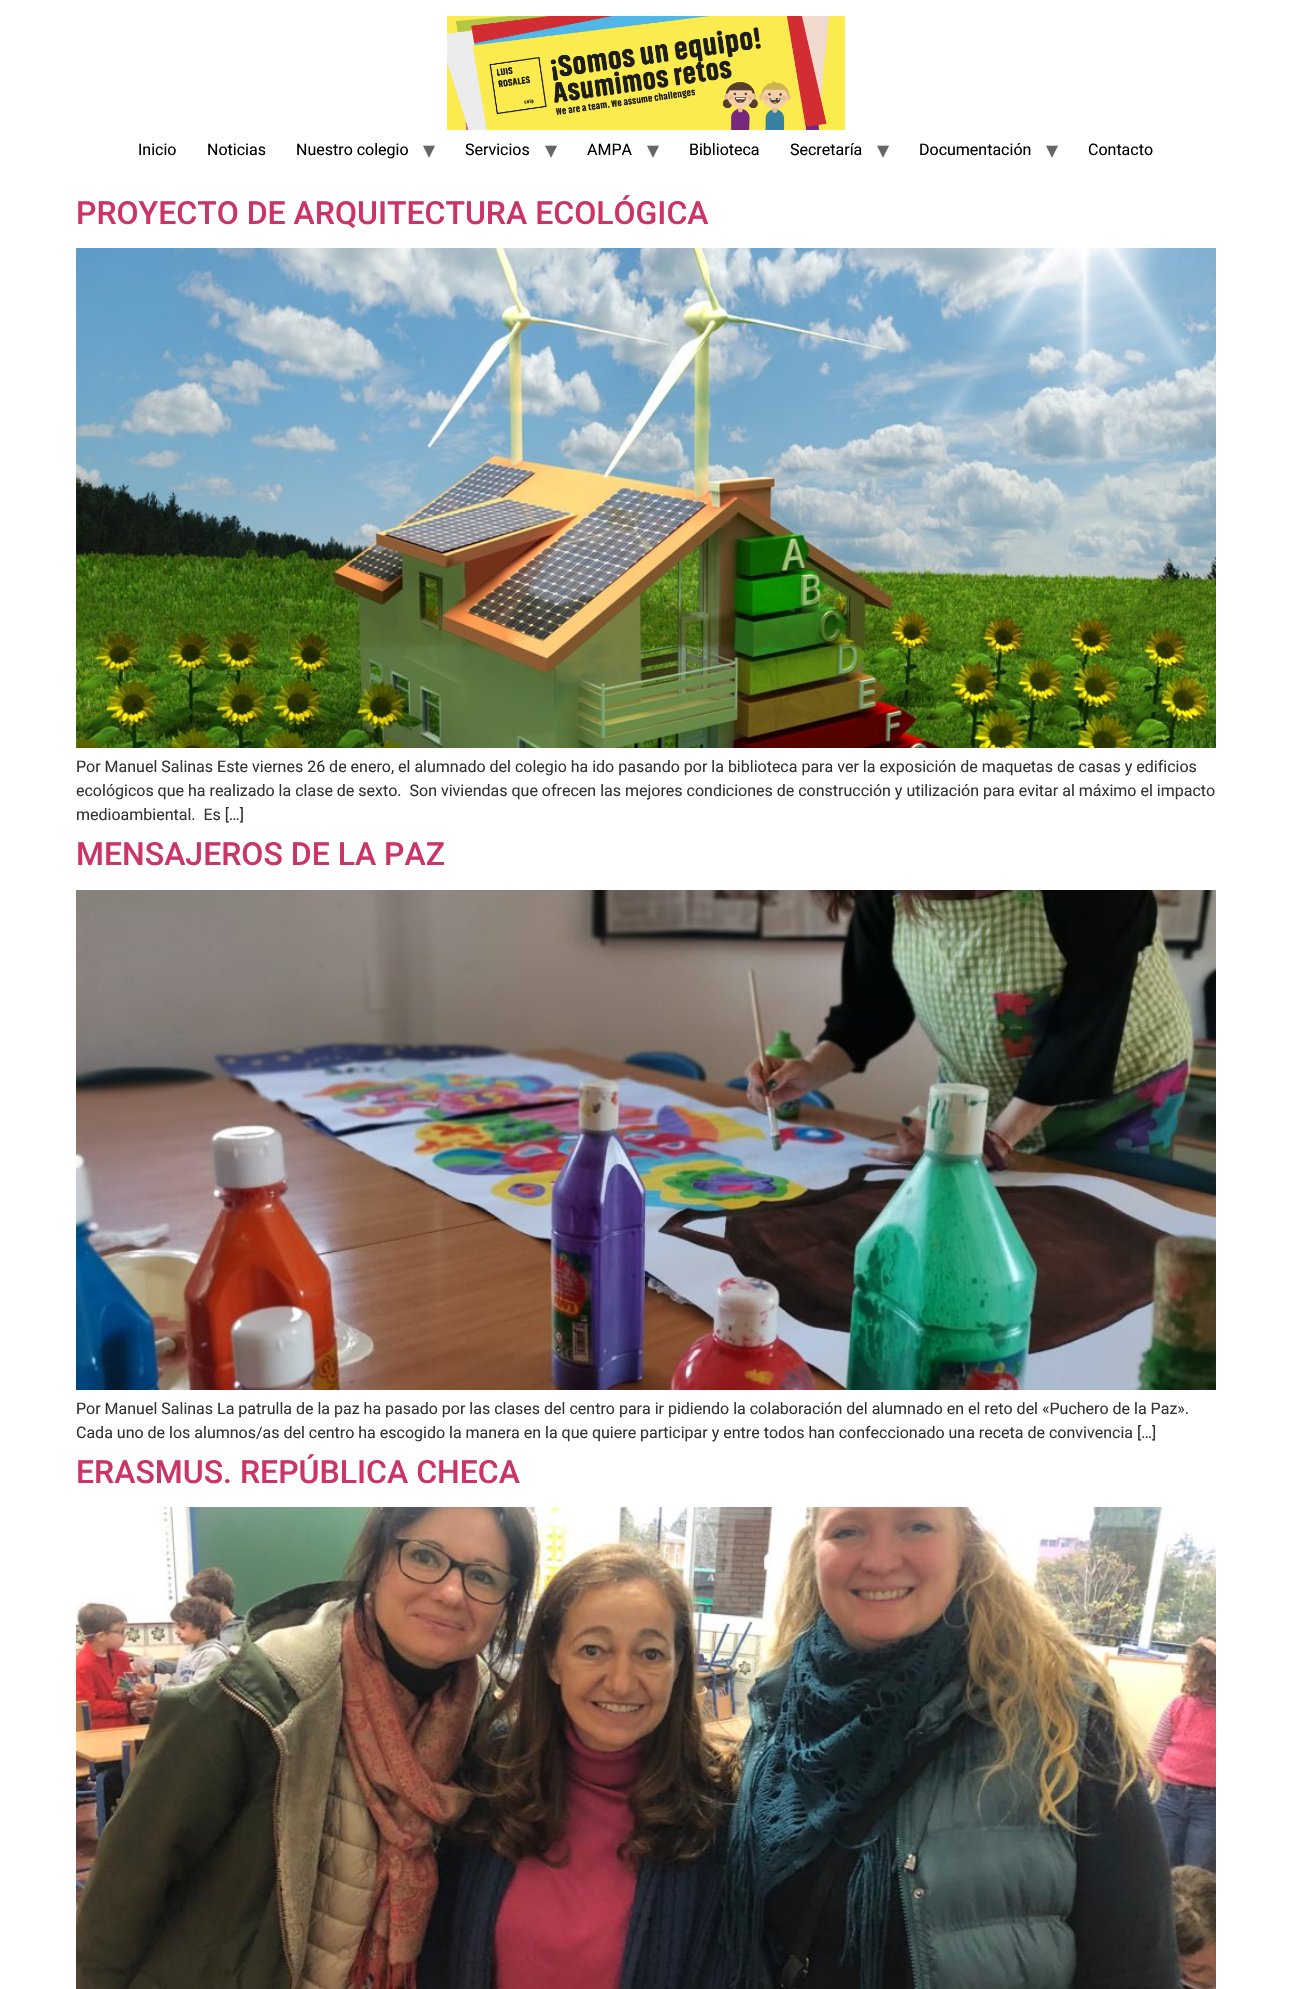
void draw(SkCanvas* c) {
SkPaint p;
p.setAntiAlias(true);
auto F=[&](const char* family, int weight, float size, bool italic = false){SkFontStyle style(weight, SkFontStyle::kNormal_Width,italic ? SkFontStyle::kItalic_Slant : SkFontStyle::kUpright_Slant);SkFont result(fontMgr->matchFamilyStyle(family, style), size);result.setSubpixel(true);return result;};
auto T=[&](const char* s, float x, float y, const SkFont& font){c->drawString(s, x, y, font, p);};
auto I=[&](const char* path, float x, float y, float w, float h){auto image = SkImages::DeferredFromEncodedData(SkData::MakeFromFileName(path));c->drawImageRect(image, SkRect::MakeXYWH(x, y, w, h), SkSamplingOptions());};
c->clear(0xffffffff);
I("1.png",447,16,398,114);
auto f1 = F("Roboto",400,16);
p.setColor(0xff020101);
T("Inicio",138,155,f1);
T("Noticias",207,155,f1);
T("Nuestro colegio",296,155,f1);
auto f2 = F("DejaVu Sans",400,24);
p.setColor(0xff666666);
T("▾",423,158,f2);
p.setColor(0xff020101);
T("Servicios",465,155,f1);
p.setColor(0xff666666);
T("▾",545,158,f2);
p.setColor(0xff020101);
T("AMPA",587,155,f1);
p.setColor(0xff666666);
T("▾",647,158,f2);
p.setColor(0xff020101);
T("Biblioteca",689,155,f1);
T("Secretaría",790,155,f1);
p.setColor(0xff666666);
T("▾",877,158,f2);
p.setColor(0xff020101);
T("Documentación",919,155,f1);
p.setColor(0xff666666);
T("▾",1046,158,f2);
p.setColor(0xff020101);
T("Contacto",1088,155,f1);
auto f3 = F("Roboto",500,32);
p.setColor(0xffcc3366);
T("PROYECTO DE ARQUITECTURA ECOLÓGICA",76,224,f3);
I("2.png",76,248,1140,500);
p.setColor(0xff333333);
T("Por Manuel Salinas Este viernes 26 de enero, el alumnado del colegio ha ido pasando por la biblioteca para ver la exposición de maquetas de casas y edificios",76,772,f1);
T("ecológicos que ha realizado la clase de sexto.  Son viviendas que ofrecen las mejores condiciones de construcción y utilización para evitar al máximo el impacto",76,796,f1);
T("medioambiental.  Es […]",76,820,f1);
p.setColor(0xffcc3366);
T("MENSAJEROS DE LA PAZ",76,865,f3);
I("3.png",76,890,1140,500);
p.setColor(0xff333333);
T("Por Manuel Salinas La patrulla de la paz ha pasado por las clases del centro para ir pidiendo la colaboración del alumnado en el reto del «Puchero de la Paz».",76,1414,f1);
T("Cada uno de los alumnos/as del centro ha escogido la manera en la que quiere participar y entre todos han confeccionado una receta de convivencia […]",76,1438,f1);
p.setColor(0xffcc3366);
T("ERASMUS. REPÚBLICA CHECA",76,1483,f3);
I("4.png",76,1507,1140,482);
}
